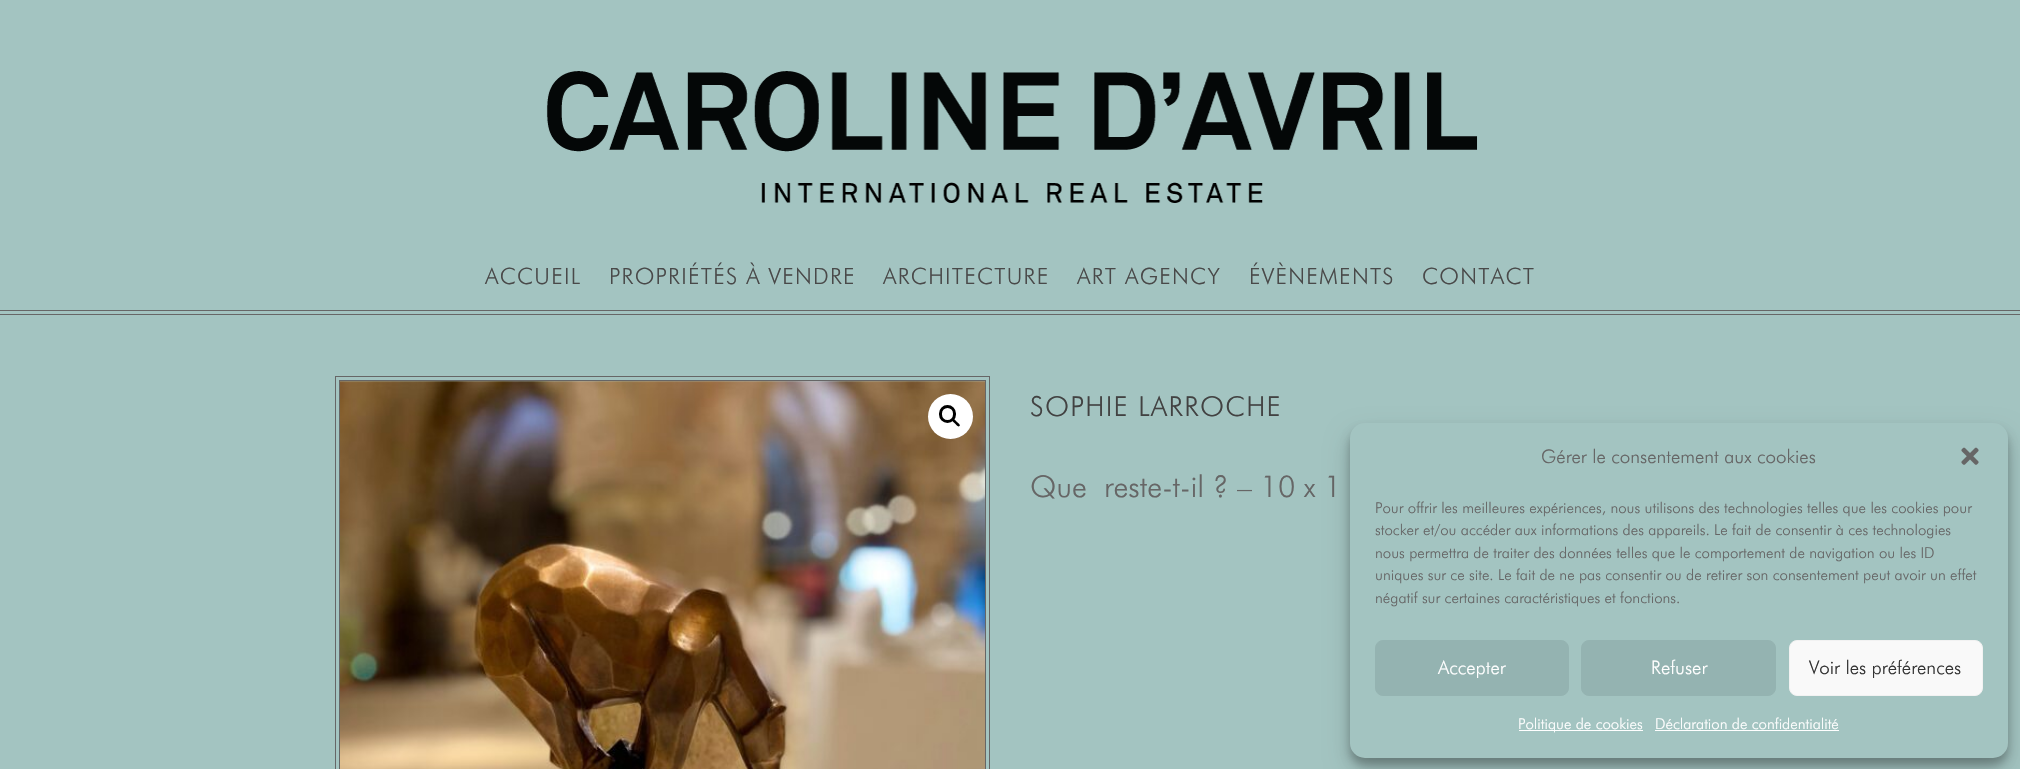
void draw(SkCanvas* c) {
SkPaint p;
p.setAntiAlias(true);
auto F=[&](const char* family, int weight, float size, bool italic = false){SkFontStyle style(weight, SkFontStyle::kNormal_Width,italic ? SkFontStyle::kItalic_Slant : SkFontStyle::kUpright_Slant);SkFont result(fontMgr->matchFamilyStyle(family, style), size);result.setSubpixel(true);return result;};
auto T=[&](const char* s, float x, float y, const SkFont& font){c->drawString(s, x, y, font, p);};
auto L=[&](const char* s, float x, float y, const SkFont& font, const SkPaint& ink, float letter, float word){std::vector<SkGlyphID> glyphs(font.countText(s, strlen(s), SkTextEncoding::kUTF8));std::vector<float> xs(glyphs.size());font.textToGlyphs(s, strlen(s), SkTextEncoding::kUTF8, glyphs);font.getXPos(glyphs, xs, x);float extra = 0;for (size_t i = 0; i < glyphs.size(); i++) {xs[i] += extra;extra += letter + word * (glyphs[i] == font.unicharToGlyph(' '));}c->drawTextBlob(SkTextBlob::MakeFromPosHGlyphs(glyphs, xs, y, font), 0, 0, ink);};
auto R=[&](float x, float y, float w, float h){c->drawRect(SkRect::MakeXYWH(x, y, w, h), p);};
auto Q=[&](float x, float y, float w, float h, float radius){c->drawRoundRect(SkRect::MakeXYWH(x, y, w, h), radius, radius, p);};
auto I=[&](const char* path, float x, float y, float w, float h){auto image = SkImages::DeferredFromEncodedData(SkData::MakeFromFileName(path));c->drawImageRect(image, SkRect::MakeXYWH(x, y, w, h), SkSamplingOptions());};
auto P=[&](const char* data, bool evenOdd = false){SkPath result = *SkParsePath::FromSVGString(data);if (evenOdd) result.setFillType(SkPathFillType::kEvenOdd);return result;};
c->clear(0xffa3c4c1);
p.setColor(0xff666666);
R(0,310,2020,1);
R(0,314,2020,1);
I("1.png",546,71,932,132);
auto f1 = F("Futura",300,22.5);
p.setColor(0xff494949);
L("ACCUEIL",485,284,f1,p,1.25,0);
L("PROPRIÉTÉS À VENDRE",609,284,f1,p,1.25,0);
L("ARCHITECTURE",883,284,f1,p,1.25,0);
L("ART AGENCY",1077,284,f1,p,1.25,0);
L("ÉVÈNEMENTS",1249,284,f1,p,1.25,0);
L("CONTACT",1422,284,f1,p,1.25,0);
p.setStroke(true);
p.setStrokeWidth(1);
p.setColor(0xff666666);
c->drawRect(SkRect::MakeXYWH(335.5,376.5,654,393),p);
c->drawRect(SkRect::MakeXYWH(339.5,380.5,646,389),p);
I("2.png",340,381,645,388);
p.setStroke(false);
p.setColor(0xffffffff);
c->drawCircle(950.5,416.5,22.5,p);
p.setStroke(true);
p.setStrokeWidth(3);
p.setColor(0xff000000);
c->drawRoundRect(SkRect::MakeXYWH(940.5,406.5,14,15),7,7,p);
p.setStroke(false);
c->drawPath(P("M952.5 419c1.5-1.5 3.5 2 4.5 3c.5 .5 4 3 2.5 4c-1.5 1.5-3.5-1.5-4.5-2.5c-.5-.5-4-3-2.5-4.5z"),p);
auto f2 = F("Futura",300,27.5);
p.setColor(0xff424242);
L("SOPHIE LARROCHE",1030,416,f2,p,1.25,0);
auto f3 = F("Futura",300,30);
p.setColor(0xff666666);
T("Que",1030,497,f3);
T("reste-t-il ? – 10 x 1",1104,497,f3);
p.setColor(0x3b000000);
p.setMaskFilter(SkMaskFilter::MakeBlur(kNormal_SkBlurStyle, 4));
c->drawRoundRect(SkRect::MakeXYWH(1350,430,658,335),15,15,p);
p.setMaskFilter(nullptr);
p.setColor(0x30000000);
p.setMaskFilter(SkMaskFilter::MakeBlur(kNormal_SkBlurStyle, 12.5));
c->drawRoundRect(SkRect::MakeXYWH(1350,435,658,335),15,15,p);
p.setMaskFilter(nullptr);
p.setColor(0xffa3c4c1);
Q(1350,423,658,335,15);
auto f4 = F("Futura",300,18.75);
p.setColor(0xff666666);
T("Gérer le consentement aux cookies",1541,463,f4);
I("3.png",1961,447,18,18);
auto f5 = F("Futura",300,15);
T("Pour offrir les meilleures expériences, nous utilisons des technologies telles que les cookies pour",1375,513,f5);
T("stocker et/ou accéder aux informations des appareils. Le fait de consentir à ces technologies",1375,535,f5);
T("nous permettra de traiter des données telles que le comportement de navigation ou les ID",1375,558,f5);
T("uniques sur ce site. Le fait de ne pas consentir ou de retirer son consentement peut avoir un effet",1375,580,f5);
T("négatif sur certaines caractéristiques et fonctions.",1375,603,f5);
p.setColor(0xff94b3b1);
c->drawRoundRect(SkRect::MakeXYWH(1375.5,640.5,193,55),7.5,7.5,p);
p.setStroke(true);
p.setStrokeWidth(1);
c->drawRoundRect(SkRect::MakeXYWH(1375.5,640.5,193,55),7.5,7.5,p);
p.setStroke(false);
p.setColor(0xffffffff);
T("Accepter",1438,674,f4);
p.setColor(0xff94b3b1);
c->drawRoundRect(SkRect::MakeXYWH(1581.5,640.5,194,55),7.5,7.5,p);
p.setStroke(true);
c->drawRoundRect(SkRect::MakeXYWH(1581.5,640.5,194,55),7.5,7.5,p);
p.setStroke(false);
p.setColor(0xffffffff);
T("Refuser",1651,674,f4);
p.setColor(0xfff9f9f9);
c->drawRoundRect(SkRect::MakeXYWH(1789.5,640.5,193,55),7.5,7.5,p);
p.setStroke(true);
p.setColor(0xfff2f2f2);
c->drawRoundRect(SkRect::MakeXYWH(1789.5,640.5,193,55),7.5,7.5,p);
p.setStroke(false);
p.setColor(0xff333333);
T("Voir les préférences",1809,674,f4);
p.setColor(0xffffffff);
R(1519,730,124,1);
T("Politique de cookies",1518,729,f5);
T("Déclaration de confidentialité",1655,729,f5);
R(1655,730,184,1);
}
